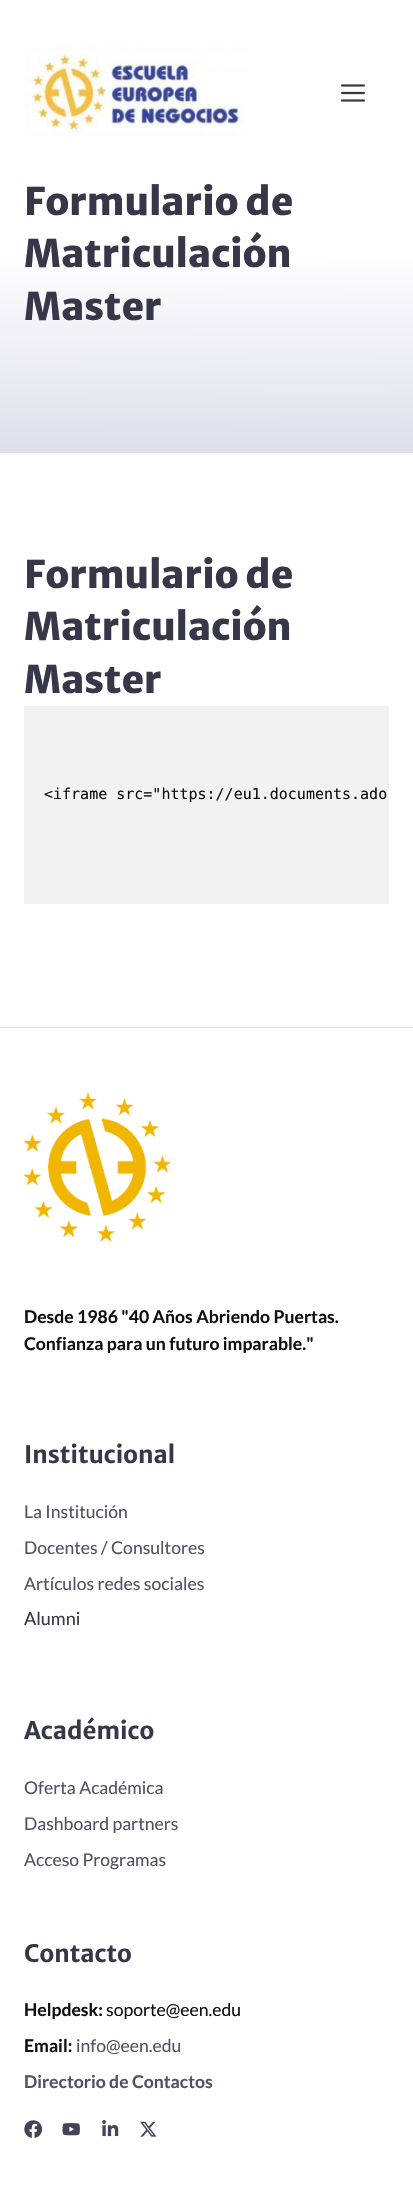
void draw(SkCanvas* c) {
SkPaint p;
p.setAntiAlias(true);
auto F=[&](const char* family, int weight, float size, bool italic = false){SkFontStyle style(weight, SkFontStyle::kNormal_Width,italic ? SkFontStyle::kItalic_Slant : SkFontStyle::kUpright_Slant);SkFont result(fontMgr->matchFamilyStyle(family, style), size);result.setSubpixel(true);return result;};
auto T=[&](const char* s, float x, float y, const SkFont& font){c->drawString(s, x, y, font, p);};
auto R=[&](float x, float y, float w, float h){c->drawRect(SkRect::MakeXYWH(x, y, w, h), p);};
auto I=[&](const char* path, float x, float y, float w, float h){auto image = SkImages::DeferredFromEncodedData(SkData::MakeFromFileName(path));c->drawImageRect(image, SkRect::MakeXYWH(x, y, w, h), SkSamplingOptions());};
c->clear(0xffffffff);
I("1.png",24,47,221,89);
I("2.png",341,84,24,18);
{
const SkColor colors[] = {0xffffffff,0xffdfdfeb};
const float stops[] = {.3,1};
const SkPoint ends[] = {{206,160}, {207,453}};
p.setShader(SkGradientShader::MakeLinear(ends, colors, stops, 2, SkTileMode::kClamp));
p.setAlpha(255);
}
R(0,263,413,190);
auto f1 = F("Merriweather Sans",800,38);
p.setShader(nullptr);
p.setColor(0xff373749);
T("Formulario de",24,215,f1);
T("Matriculación",24,267,f1);
T("Master",24,320,f1);
T("Formulario de",24,588,f1);
T("Matriculación",24,640,f1);
T("Master",24,693,f1);
p.setColor(0xfff2f2f2);
R(24,706,365,198);
auto f2 = F("DejaVu Sans Mono",400,15);
p.setColor(0xff101014);
T("<iframe src=\"https://eu1.documents.ado",44,799,f2);
p.setColor(0xffdfdfeb);
R(0,1027,413,1);
I("3.png",24,1092,148,150);
auto f3 = F("Lato",700,17.6);
p.setColor(0xff101014);
T("Desde 1986 \"40 Años Abriendo Puertas.",24,1323,f3);
T("Confianza para un futuro imparable.\"",24,1350,f3);
auto f4 = F("Merriweather Sans",700,24);
p.setColor(0xff373749);
T("Institucional",24,1463,f4);
auto f5 = F("Lato",400,17.6);
p.setColor(0xff505066);
T("La Institución",24,1518,f5);
T("Docentes / Consultores",24,1554,f5);
T("Artículos redes sociales",24,1590,f5);
auto f6 = F("Lato",400,18);
p.setColor(0xff373749);
T("Alumni",24,1625,f6);
T("Académico",24,1739,f4);
p.setColor(0xff505066);
T("Oferta Académica",24,1794,f5);
T("Dashboard partners",24,1830,f5);
T("Acceso Programas",24,1866,f5);
p.setColor(0xff373749);
T("Contacto",24,1962,f4);
p.setColor(0xff101014);
T("Helpdesk:",24,2016,f3);
T("soporte@een.edu",106,2016,f5);
T("Email:",24,2052,f3);
p.setColor(0xff505066);
T("info@een.edu",76,2052,f5);
T("Directorio de Contactos",24,2088,f3);
I("4.png",24,2120,18,18);
I("5.png",62,2123,18,13);
I("6.png",102,2120,17,17);
I("7.png",140,2121,17,16);
}
